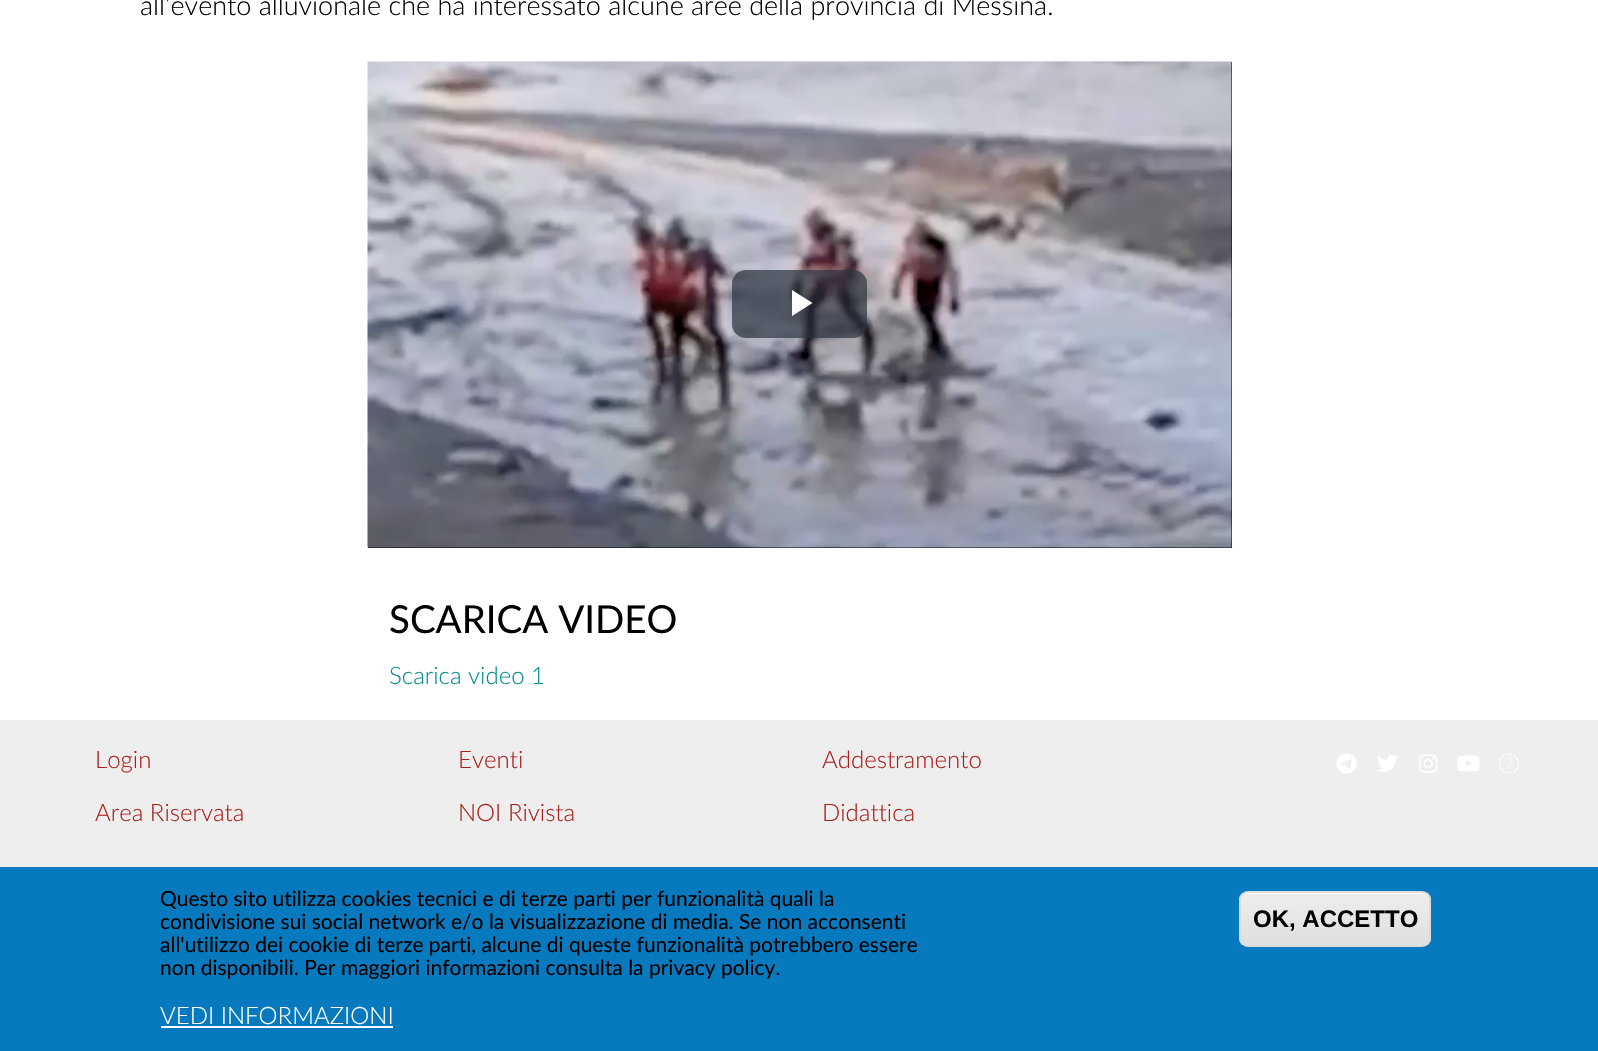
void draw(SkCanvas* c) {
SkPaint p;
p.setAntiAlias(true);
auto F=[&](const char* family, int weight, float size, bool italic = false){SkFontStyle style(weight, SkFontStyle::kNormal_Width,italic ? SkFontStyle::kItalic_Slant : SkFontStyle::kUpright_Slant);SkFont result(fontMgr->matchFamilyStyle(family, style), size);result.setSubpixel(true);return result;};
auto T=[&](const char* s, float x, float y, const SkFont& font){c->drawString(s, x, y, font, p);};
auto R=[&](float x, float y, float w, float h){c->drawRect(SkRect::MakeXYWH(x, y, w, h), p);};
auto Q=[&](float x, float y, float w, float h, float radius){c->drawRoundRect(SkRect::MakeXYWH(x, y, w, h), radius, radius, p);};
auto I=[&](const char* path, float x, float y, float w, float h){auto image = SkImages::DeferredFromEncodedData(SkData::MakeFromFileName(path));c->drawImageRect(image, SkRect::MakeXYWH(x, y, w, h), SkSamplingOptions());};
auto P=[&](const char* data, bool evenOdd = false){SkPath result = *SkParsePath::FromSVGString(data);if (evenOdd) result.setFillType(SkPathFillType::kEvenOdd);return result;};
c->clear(0xffffffff);
auto f1 = F("Lato",300,27);
p.setColor(0xff000000);
T("all’evento alluvionale che ha interessato alcune aree della provincia di Messina.",140,15,f1);
R(368,62,864,486);
I("2.png",394,61,811,1);
I("1.png",367,61,865,487);
p.setColor(0xb32b333f);
Q(732,270,135,68,14);
p.setColor(0xffffffff);
c->drawPath(P("M792 290v26l20.5-13z"),p);
auto f2 = F("Lato",400,38.5);
p.setColor(0xff000000);
T("SCARICA VIDEO",389,633,f2);
auto f3 = F("Lato",300,24);
p.setColor(0xff078d92);
T("Scarica video 1",389,684,f3);
p.setColor(0xffeeeeee);
R(0,720,1598,147);
p.setColor(0xffab201d);
T("Login",95,768,f3);
T("Area Riservata",95,821,f3);
T("Eventi",458,768,f3);
T("NOI Rivista",458,821,f3);
T("Addestramento",822,768,f3);
T("Didattica",822,821,f3);
I("3.png",1336,753,21,21);
I("4.png",1377,755,21,17);
I("5.png",1419,754,19,19);
I("6.png",1457,755,23,17);
I("7.png",1499,753,20,21);
p.setColor(0xff0779bf);
R(0,867,1598,184);
auto f4 = F("Lato",400,21);
p.setColor(0xff000000);
T("Questo sito utilizza cookies tecnici e di terze parti per funzionalità quali la",160,906,f4);
T("condivisione sui social network e/o la visualizzazione di media. Se non acconsenti",160,929,f4);
T("all'utilizzo dei cookie di terze parti, alcune di queste funzionalità potrebbero essere",160,952,f4);
T("non disponibili. Per maggiori informazioni consulta la privacy policy.",160,975,f4);
p.setColor(0xffffffff);
T("VEDI INFORMAZIONI",160,1024,f3);
R(161,1026,232,2);
c->save();
c->clipPath(P("M1248 891h174c5 0 9 4 9 9v38c0 5-4 9-9 9h-174c-5 0-9-4-9-9v-38c0-5 4-9 9-9z"),true);
{
const SkColor colors[] = {0xffededed,0xffdfdfdf};
const float stops[] = {.05,1};
const SkPoint ends[] = {{1335,893}, {1335,945}};
p.setShader(SkGradientShader::MakeLinear(ends, colors, stops, 2, SkTileMode::kClamp));
p.setAlpha(255);
}
R(1239,893,192,52);
c->restore();
p.setShader(nullptr);
p.setColor(0xffffffff);
c->drawPath(P("M1248 894h174c4 0 8 3 8 8v-1c0-4-4-8-8-8h-173c-2 0-5 1-6 3c1-1 3-2 5-2z"),p);
p.setStroke(true);
p.setStrokeWidth(2);
p.setColor(0xffdcdcdc);
c->drawRoundRect(SkRect::MakeXYWH(1240,892,190,54),8,8,p);
auto f5 = F("Liberation Sans",700,24);
p.setStroke(false);
p.setColor(0xff000000);
T("OK, ACCETTO",1253,927,f5);
}
